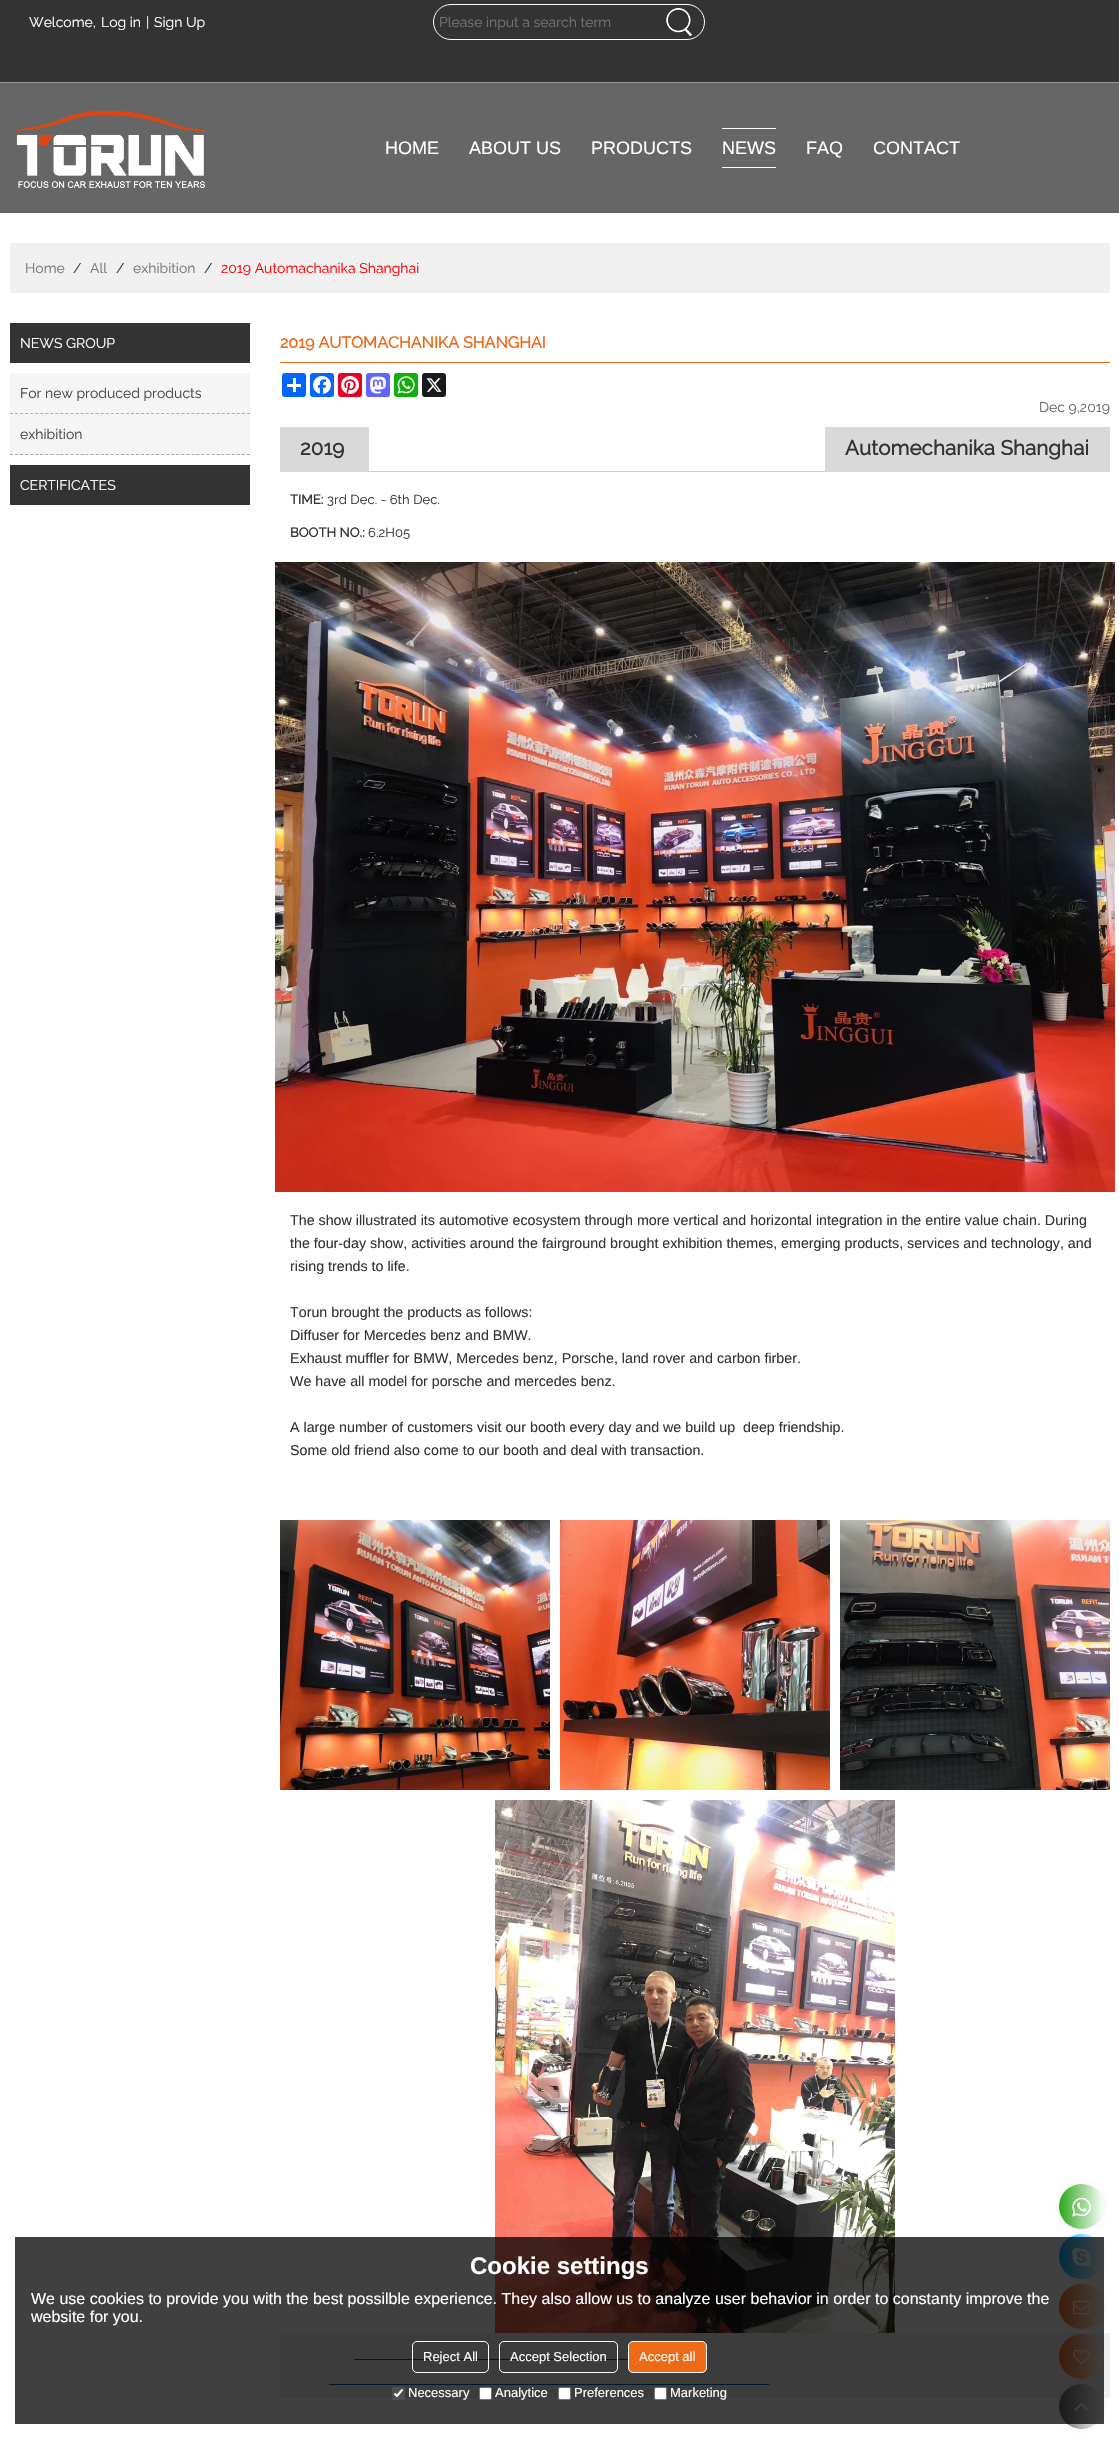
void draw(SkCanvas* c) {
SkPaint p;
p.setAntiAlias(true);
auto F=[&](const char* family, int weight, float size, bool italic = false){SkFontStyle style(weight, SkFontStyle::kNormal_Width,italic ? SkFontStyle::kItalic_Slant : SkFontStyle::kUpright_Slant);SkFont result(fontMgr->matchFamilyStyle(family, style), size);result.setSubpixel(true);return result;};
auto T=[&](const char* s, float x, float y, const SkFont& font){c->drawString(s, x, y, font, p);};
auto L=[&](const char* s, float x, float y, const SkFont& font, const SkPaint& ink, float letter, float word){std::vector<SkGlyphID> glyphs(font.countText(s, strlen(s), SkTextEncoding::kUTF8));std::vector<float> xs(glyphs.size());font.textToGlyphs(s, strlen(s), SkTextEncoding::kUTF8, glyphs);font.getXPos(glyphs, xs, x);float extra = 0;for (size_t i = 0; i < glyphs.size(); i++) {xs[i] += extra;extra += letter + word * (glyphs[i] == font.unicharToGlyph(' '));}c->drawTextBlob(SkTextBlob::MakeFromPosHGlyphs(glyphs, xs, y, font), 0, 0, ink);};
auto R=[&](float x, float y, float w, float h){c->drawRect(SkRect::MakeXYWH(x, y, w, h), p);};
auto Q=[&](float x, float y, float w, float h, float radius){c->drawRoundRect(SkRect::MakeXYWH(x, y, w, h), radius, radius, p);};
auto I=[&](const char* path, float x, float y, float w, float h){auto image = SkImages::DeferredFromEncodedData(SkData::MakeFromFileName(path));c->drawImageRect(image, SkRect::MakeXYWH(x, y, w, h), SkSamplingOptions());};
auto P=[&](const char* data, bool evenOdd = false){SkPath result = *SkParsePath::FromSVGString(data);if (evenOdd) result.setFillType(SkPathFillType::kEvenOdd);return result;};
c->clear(0xffffffff);
p.setColor(0xff333333);
R(0,0,1119,82);
p.setColor(0xff999999);
R(0,82,1119,1);
auto f1 = F("Raleway",100,14);
p.setColor(0xffffffff);
T("Welcome,",29,27,f1);
T("Log in",101,27,f1);
T("|",146,27,f1);
T("Sign Up",154,27,f1);
p.setStroke(true);
p.setStrokeWidth(1);
c->drawRoundRect(SkRect::MakeXYWH(433.5,4.5,271,35),17.5,17.5,p);
p.setStroke(false);
p.setColor(0xff757575);
T("Please input a search term",439,27,f1);
I("1.png",666,8,26,28);
p.setColor(0xff666666);
R(0,83,1119,130);
I("2.png",12,110,198,78);
auto f2 = F("Liberation Sans",400,18);
p.setColor(0xffffffff);
T("HOME",385,154,f2);
T("ABOUT US",469,154,f2);
T("PRODUCTS",591,154,f2);
R(722,128,54,1);
R(722,167,54,1);
T("NEWS",722,154,f2);
T("FAQ",806,154,f2);
T("CONTACT",873,154,f2);
p.setColor(0xfff0f0f0);
R(10,243,1100,50);
p.setColor(0xff757575);
T("Home",25,273,f1);
p.setColor(0xff333333);
T("/",73,273,f1);
p.setColor(0xff757575);
T("All",90,273,f1);
p.setColor(0xff333333);
T("/",116,273,f1);
p.setColor(0xff757575);
T("exhibition",133,273,f1);
p.setColor(0xff333333);
T("/",204,273,f1);
p.setColor(0xffff0000);
T("2019 Automachanika Shanghai",221,273,f1);
p.setColor(0xff333333);
R(10,323,240,40);
p.setColor(0xffffffff);
T("NEWS GROUP",20,348,f1);
p.setColor(0xfff5f5f5);
R(10,373,240,82);
p.setStroke(true);
p.setColor(0xffaaaaaa);
p.setPathEffect(SkDashPathEffect::Make({{3,2.04f}}, 0));
c->drawPath(P("M10 413.5h240"),p);
p.setPathEffect(nullptr);
p.setStroke(false);
p.setColor(0xff444444);
T("For new produced products",20,398,f1);
p.setStroke(true);
p.setColor(0xffaaaaaa);
p.setPathEffect(SkDashPathEffect::Make({{3,2.04f}}, 0));
c->drawPath(P("M10 454.5h240"),p);
p.setPathEffect(nullptr);
p.setStroke(false);
p.setColor(0xff444444);
T("exhibition",20,439,f1);
p.setColor(0xff333333);
R(10,465,240,40);
p.setColor(0xffffffff);
T("CERTIFICATES",20,490,f1);
p.setColor(0xffed6b17);
R(280,362,830,1);
auto f3 = F("Raleway",700,16);
T("2019 AUTOMACHANIKA SHANGHAI",280,348,f3);
p.setColor(0xff0166ff);
Q(282,373,24,24,3);
p.setColor(0xffffffff);
R(293,378,3,14);
R(287,384,14,3);
p.setColor(0xff0866ff);
Q(310,373,24,24,3);
I("3.png",313,376,18,18);
p.setColor(0xffe60023);
Q(338,373,24,24,3);
I("4.png",341,376,18,18);
p.setColor(0xff6364ff);
Q(366,373,24,24,3);
I("5.png",370,376,16,18);
p.setColor(0xff12af0a);
Q(394,373,24,24,3);
I("6.png",397,376,18,18);
p.setColor(0xff1a1a1a);
Q(422,373,24,24,3);
I("7.png",426,378,16,14);
p.setColor(0xff666666);
T("Dec 9,2019",1039,412,f1);
p.setColor(0xffcecece);
R(369,471,456,1);
p.setColor(0xffd9d9d9);
R(280,427,89,45);
auto f4 = F("Raleway",700,20.5);
p.setColor(0xff333333);
L("2019",300,455,f4,p,.1,0);
p.setColor(0xffd9d9d9);
R(825,427,285,45);
p.setColor(0xff333333);
L("Automechanika Shanghai",845,455,f4,p,.1,0);
auto f5 = F("Raleway",700,13);
L("TIME:",290,504,f5,p,.1,0);
auto f6 = F("Raleway",100,13);
L("3rd Dec. - 6th Dec.",327,504,f6,p,.1,0);
L("BOOTH NO.:",290,537,f5,p,.1,0);
L("6.2H05",368,537,f6,p,.1,0);
I("8.png",275,562,840,630);
auto f7 = F("Liberation Sans",400,14.25);
T("The show illustrated its automotive ecosystem through more vertical and horizontal integration in the entire value chain. During",290,1225,f7);
T("the four-day show, activities around the fairground brought exhibition themes, emerging products, services and technology, and",290,1248,f7);
T("rising trends to life.",290,1271,f7);
T("Torun brought the products as follows:",290,1317,f7);
T("Diffuser for Mercedes benz and BMW.",290,1340,f7);
T("Exhaust muffler for BMW, Mercedes benz, Porsche, land rover and carbon firber.",290,1363,f7);
T("We have all model for porsche and mercedes benz.",290,1386,f7);
T("A large number of customers visit our booth every day and we build up  deep friendship.",290,1432,f7);
T("Some old friend also come to our booth and deal with transaction.",290,1455,f7);
I("9.png",280,1520,270,270);
I("10.png",560,1520,270,270);
I("11.png",840,1520,270,270);
I("12.png",495,1800,400,533);
p.setColor(0xfff0f0f0);
R(280,2333,830,65);
p.setColor(0xff005bb0);
R(354,2359,274,1);
R(329,2384,440,1);
p.setColor(0xffeeeeee);
p.setMaskFilter(SkMaskFilter::MakeBlur(kNormal_SkBlurStyle, 2.5));
c->drawRoundRect(SkRect::MakeXYWH(1059,2184,45,45),22.5,22.5,p);
p.setMaskFilter(nullptr);
{
const SkColor colors[] = {0xff29a61a,0xffffffff};
const float stops[] = {0,1};
const SkPoint ends[] = {{1059,2207}, {1104,2207}};
p.setShader(SkGradientShader::MakeLinear(ends, colors, stops, 2, SkTileMode::kClamp));
p.setAlpha(255);
}
c->drawCircle(1081.5,2206.5,22.5,p);
p.setShader(nullptr);
p.setColor(0xffeeeeee);
p.setMaskFilter(SkMaskFilter::MakeBlur(kNormal_SkBlurStyle, 2.5));
c->drawRoundRect(SkRect::MakeXYWH(1059,2234,45,45),22.5,22.5,p);
p.setMaskFilter(nullptr);
{
const SkColor colors[] = {0xff01aef3,0xffffffff};
const float stops[] = {0,1};
const SkPoint ends[] = {{1059,2257}, {1104,2257}};
p.setShader(SkGradientShader::MakeLinear(ends, colors, stops, 2, SkTileMode::kClamp));
p.setAlpha(255);
}
c->drawCircle(1081.5,2256.5,22.5,p);
I("14.png",1072,2247,19,20);
p.setShader(nullptr);
p.setColor(0xffeeeeee);
p.setMaskFilter(SkMaskFilter::MakeBlur(kNormal_SkBlurStyle, 2.5));
c->drawRoundRect(SkRect::MakeXYWH(1059,2284,45,45),22.5,22.5,p);
p.setMaskFilter(nullptr);
{
const SkColor colors[] = {0xffed6b17,0xffffffff};
const float stops[] = {0,1};
const SkPoint ends[] = {{1059,2307}, {1104,2307}};
p.setShader(SkGradientShader::MakeLinear(ends, colors, stops, 2, SkTileMode::kClamp));
p.setAlpha(255);
}
c->drawCircle(1081.5,2306.5,22.5,p);
I("15.png",1073,2300,17,15);
{
const SkColor colors[] = {0xffed6b17,0xffffffff};
const float stops[] = {0,1};
const SkPoint ends[] = {{1059,2357}, {1104,2357}};
p.setShader(SkGradientShader::MakeLinear(ends, colors, stops, 2, SkTileMode::kClamp));
p.setAlpha(255);
}
c->drawCircle(1081.5,2356.5,22.5,p);
I("16.png",1073,2349,17,16);
p.setShader(nullptr);
p.setColor(0xffeeeeee);
p.setMaskFilter(SkMaskFilter::MakeBlur(kNormal_SkBlurStyle, 2.5));
c->drawRoundRect(SkRect::MakeXYWH(1059,2384,45,45),22.5,22.5,p);
p.setMaskFilter(nullptr);
{
const SkColor colors[] = {0xff666666,0xffffffff};
const float stops[] = {0,1};
const SkPoint ends[] = {{1059,2407}, {1104,2407}};
p.setShader(SkGradientShader::MakeLinear(ends, colors, stops, 2, SkTileMode::kClamp));
p.setAlpha(255);
}
c->drawCircle(1081.5,2406.5,22.5,p);
I("17.png",1074,2402,15,9);
p.setShader(nullptr);
p.setColor(0xbf000000);
R(15,2237,1089,187);
auto f8 = F("Liberation Sans",700,24);
p.setColor(0xffffffff);
T("Cookie settings",470,2274,f8);
auto f9 = F("Liberation Sans",400,16);
T("We use cookies to provide you with the best possilble experience. They also allow us to analyze user behavior in order to constanty improve the",31,2304,f9);
T("website for you.",31,2322,f9);
p.setStroke(true);
c->drawRoundRect(SkRect::MakeXYWH(412.5,2341.5,76,31),4.5,4.5,p);
auto f10 = F("Liberation Sans",400,13);
p.setStroke(false);
T("Reject All",423,2361,f10);
p.setStroke(true);
c->drawRoundRect(SkRect::MakeXYWH(499.5,2341.5,118,31),4.5,4.5,p);
p.setStroke(false);
T("Accept Selection",510,2361,f10);
p.setColor(0xffed6b17);
c->drawRoundRect(SkRect::MakeXYWH(628.5,2341.5,78,31),4.5,4.5,p);
p.setStroke(true);
p.setColor(0xffffffff);
c->drawRoundRect(SkRect::MakeXYWH(628.5,2341.5,78,31),4.5,4.5,p);
p.setStroke(false);
T("Accept all",639,2361,f10);
p.setColor(0x4d767676);
Q(392,2387,13,13,2);
p.setStroke(true);
p.setStrokeWidth(2.1);
p.setColor(0xffffffff);
c->drawPath(P("M394.5 2393.5l2.5 2.5l5.5-6.5"),p);
p.setStroke(false);
T("Necessary",408,2397,f10);
c->drawRoundRect(SkRect::MakeXYWH(479.5,2387.5,12,12),1.5,1.5,p);
p.setStroke(true);
p.setStrokeWidth(1);
p.setColor(0xff767676);
c->drawRoundRect(SkRect::MakeXYWH(479.5,2387.5,12,12),1.5,1.5,p);
p.setStroke(false);
p.setColor(0xffffffff);
T("Analytice",495,2397,f10);
c->drawRoundRect(SkRect::MakeXYWH(558.5,2387.5,12,12),1.5,1.5,p);
p.setStroke(true);
p.setColor(0xff767676);
c->drawRoundRect(SkRect::MakeXYWH(558.5,2387.5,12,12),1.5,1.5,p);
p.setStroke(false);
p.setColor(0xffffffff);
T("Preferences",574,2397,f10);
c->drawRoundRect(SkRect::MakeXYWH(654.5,2387.5,12,12),1.5,1.5,p);
p.setStroke(true);
p.setColor(0xff767676);
c->drawRoundRect(SkRect::MakeXYWH(654.5,2387.5,12,12),1.5,1.5,p);
p.setStroke(false);
p.setColor(0xffffffff);
T("Marketing",670,2397,f10);
I("13.png",1072,2197,19,20);
}
